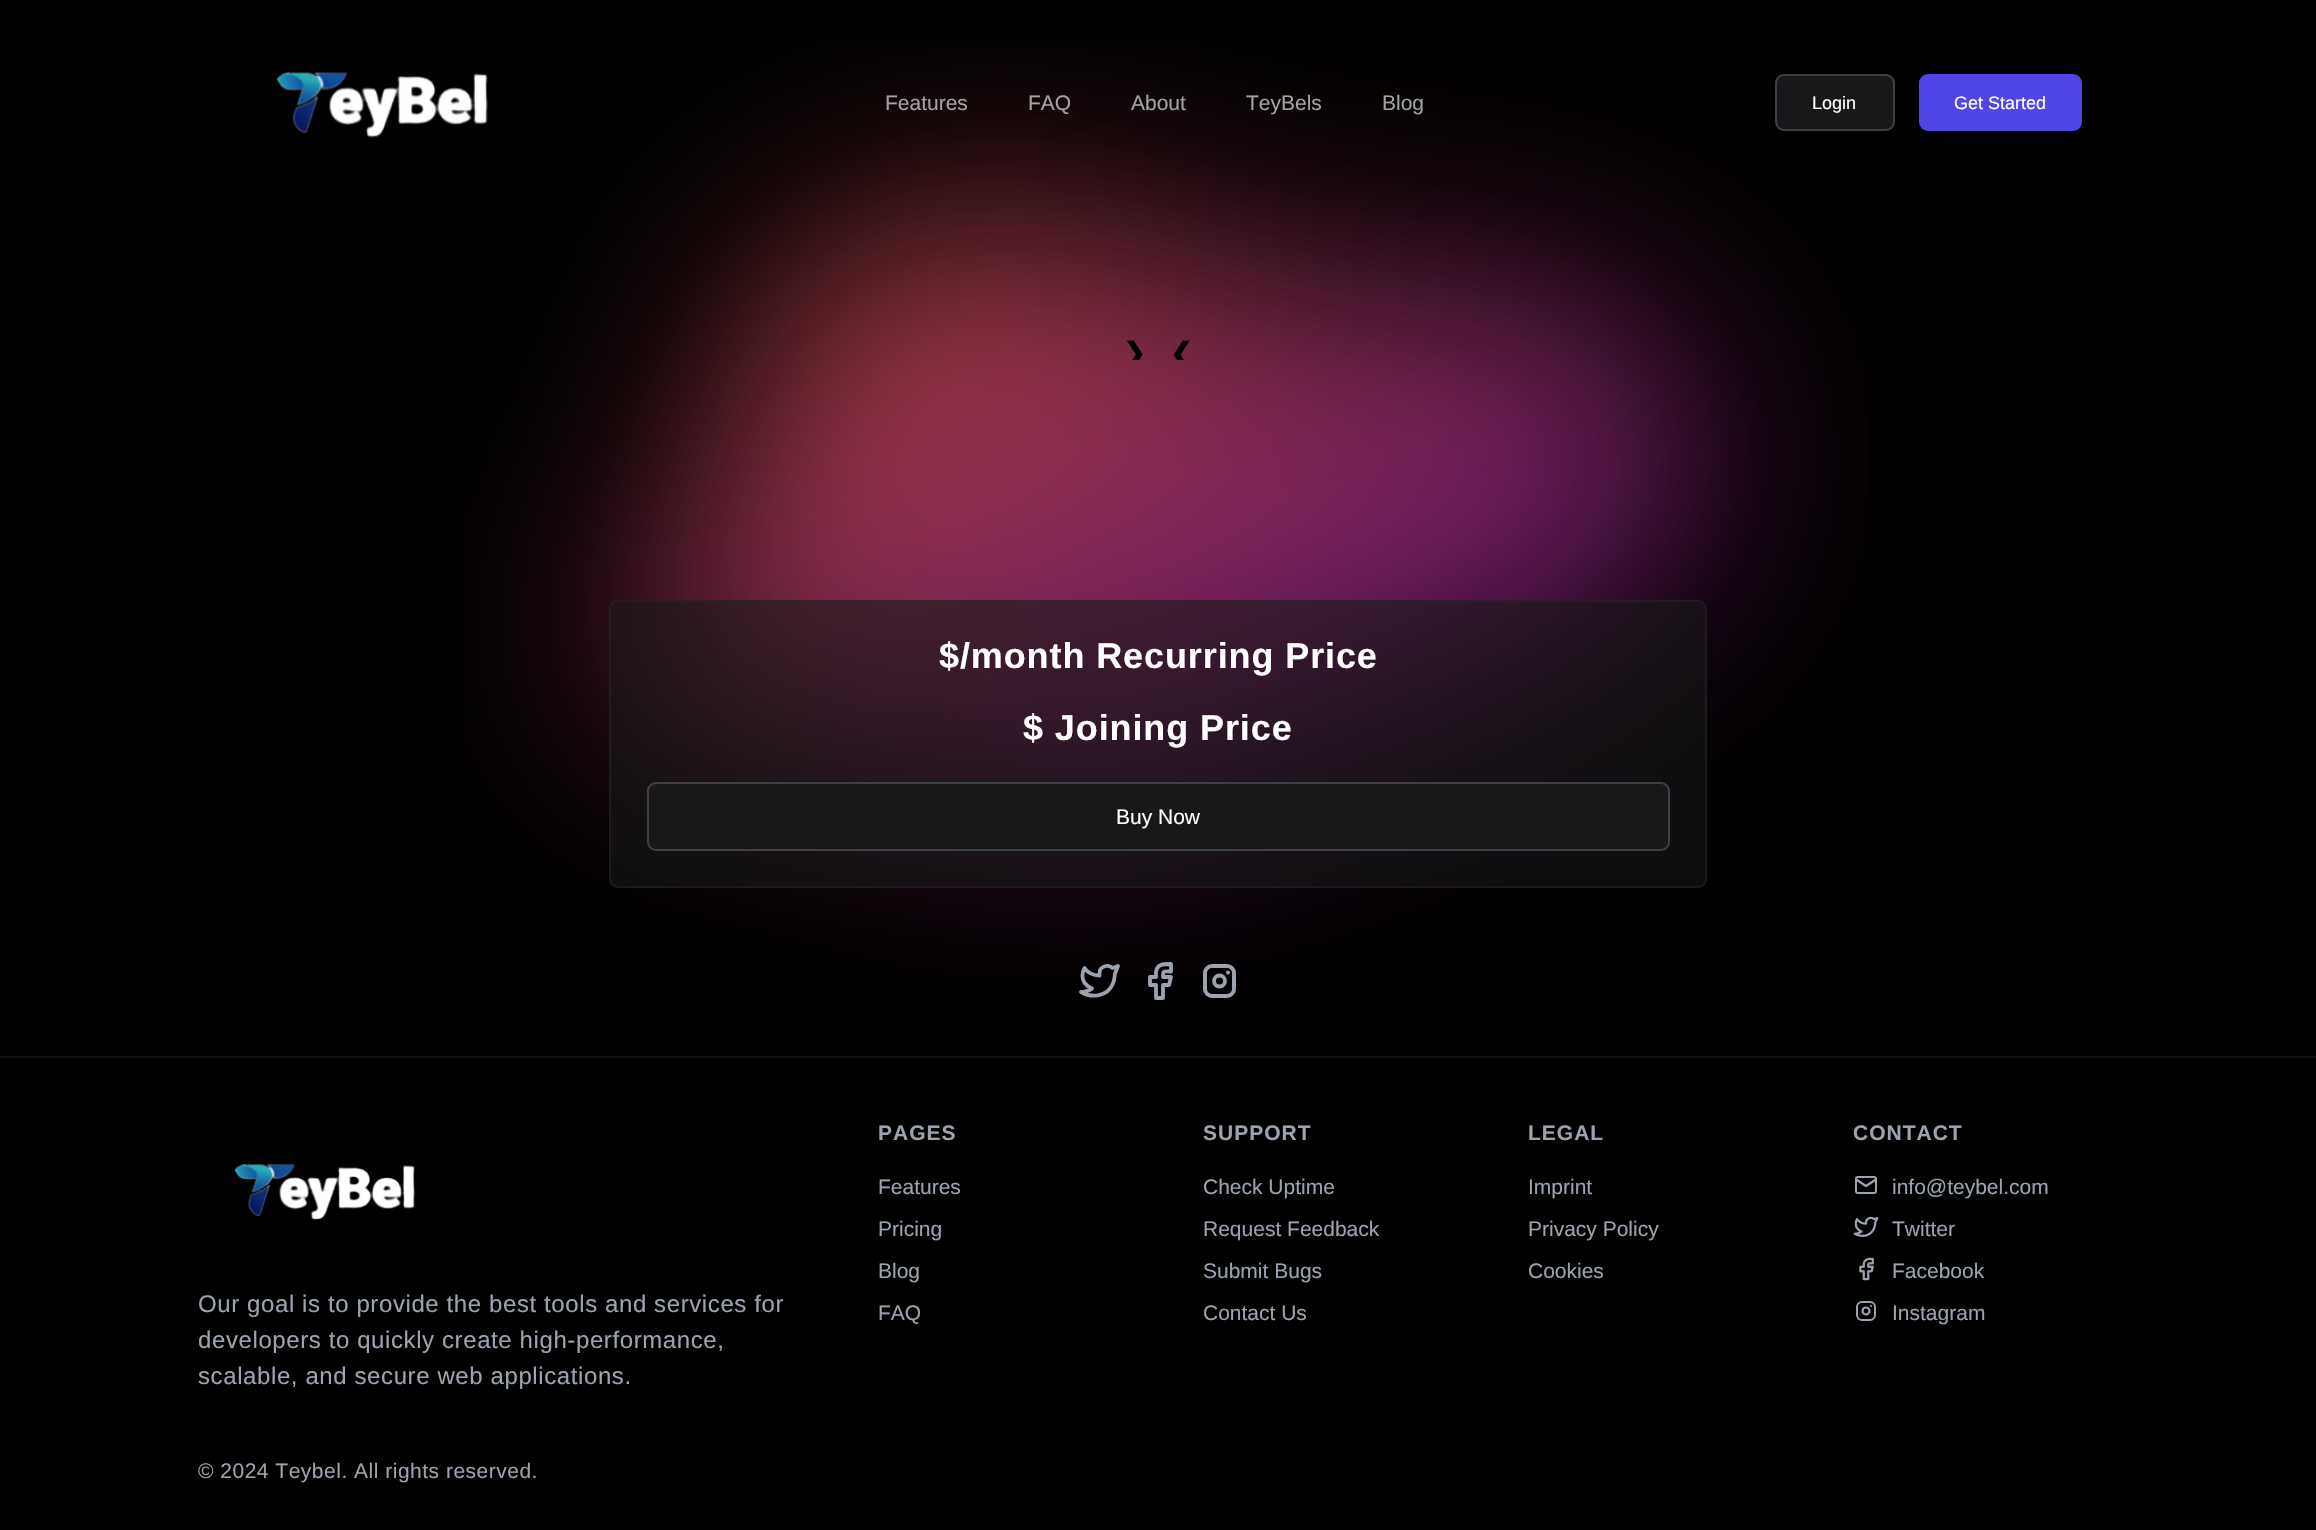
void draw(SkCanvas* c) {
SkPaint p;
p.setAntiAlias(true);
auto F=[&](const char* family, int weight, float size, bool italic = false){SkFontStyle style(weight, SkFontStyle::kNormal_Width,italic ? SkFontStyle::kItalic_Slant : SkFontStyle::kUpright_Slant);SkFont result(fontMgr->matchFamilyStyle(family, style), size);result.setSubpixel(true);return result;};
auto T=[&](const char* s, float x, float y, const SkFont& font){c->drawString(s, x, y, font, p);};
auto L=[&](const char* s, float x, float y, const SkFont& font, const SkPaint& ink, float letter, float word){std::vector<SkGlyphID> glyphs(font.countText(s, strlen(s), SkTextEncoding::kUTF8));std::vector<float> xs(glyphs.size());font.textToGlyphs(s, strlen(s), SkTextEncoding::kUTF8, glyphs);font.getXPos(glyphs, xs, x);float extra = 0;for (size_t i = 0; i < glyphs.size(); i++) {xs[i] += extra;extra += letter + word * (glyphs[i] == font.unicharToGlyph(' '));}c->drawTextBlob(SkTextBlob::MakeFromPosHGlyphs(glyphs, xs, y, font), 0, 0, ink);};
auto R=[&](float x, float y, float w, float h){c->drawRect(SkRect::MakeXYWH(x, y, w, h), p);};
auto Q=[&](float x, float y, float w, float h, float radius){c->drawRoundRect(SkRect::MakeXYWH(x, y, w, h), radius, radius, p);};
auto I=[&](const char* path, float x, float y, float w, float h){auto image = SkImages::DeferredFromEncodedData(SkData::MakeFromFileName(path));c->drawImageRect(image, SkRect::MakeXYWH(x, y, w, h), SkSamplingOptions());};
auto P=[&](const char* data, bool evenOdd = false){SkPath result = *SkParsePath::FromSVGString(data);if (evenOdd) result.setFillType(SkPathFillType::kEvenOdd);return result;};
c->clear(0xff000000);
I("1.png",463,39,1406,939);
I("2.png",276,70,212,68);
auto f1 = F("Liberation Sans",400,21);
p.setColor(0xffa3a3a3);
T("Features",885,110,f1);
T("FAQ",1028,110,f1);
T("About",1131,110,f1);
T("TeyBels",1246,110,f1);
T("Blog",1382,110,f1);
p.setColor(0xff18181b);
c->drawRoundRect(SkRect::MakeXYWH(1776,75,118,55),8,8,p);
p.setStroke(true);
p.setStrokeWidth(2);
p.setColor(0xff3f3f46);
c->drawRoundRect(SkRect::MakeXYWH(1776,75,118,55),8,8,p);
auto f2 = F("Liberation Sans",400,18);
p.setStroke(false);
p.setColor(0xffffffff);
T("Login",1812,109,f2);
p.setColor(0xff5046e5);
Q(1919,74,163,57,9);
p.setColor(0xffffffff);
T("Get Started",1954,109,f2);
c->save();
c->clipRect(SkRect::MakeXYWH(198,324,1920,36));
auto f3 = F("DejaVu Sans",700,27);
p.setColor(0xff000000);
T("❯",1123,362,f3);
T("❮",1170,362,f3);
c->restore();
p.setColor(0x99171717);
Q(609,600,1098,288,9);
p.setStroke(true);
p.setColor(0x80262626);
c->drawRoundRect(SkRect::MakeXYWH(610,601,1096,286),8,8,p);
auto f4 = F("Liberation Sans",700,36);
p.setStroke(false);
p.setColor(0xffffffff);
L("$/month Recurring Price",939,668,f4,p,.9,0);
L("$ Joining Price",1023,740,f4,p,.9,0);
p.setColor(0xff18181b);
c->drawRoundRect(SkRect::MakeXYWH(648,783,1021,67),8,8,p);
p.setStroke(true);
p.setColor(0xff3f3f46);
c->drawRoundRect(SkRect::MakeXYWH(648,783,1021,67),8,8,p);
p.setStroke(false);
p.setColor(0xffffffff);
T("Buy Now",1116,824,f1);
p.setStroke(true);
p.setStrokeWidth(3.8);
p.setStrokeCap(SkPaint::kRound_Cap);
p.setStrokeJoin(SkPaint::kRound_Join);
p.setColor(0xff9ca3af);
c->drawPath(P("M1118 966l-5.5 2c-3.5-4-10-2-12.5 2c-.5 2-.5 3.5-.5 5.5c-6 0-11.5-2.5-15-7.5c0 0-8 14 7.5 20.5c-3.5 2.5-7 4-11 3.5c11 6.5 26.5 4.5 32-8.5c1.5-3.5 1.5-6.5 2-10z"),p);
c->drawPath(P("M1150 977v8h6v13h7v-13h6l2-8h-8c0-7 1-5.5 8-5.5v-7.5c-6.5 0-13.5-.5-15 7.5v5.5h-6"),p);
p.setStrokeWidth(4);
p.setStrokeCap(SkPaint::kButt_Cap);
p.setStrokeJoin(SkPaint::kMiter_Join);
c->drawRoundRect(SkRect::MakeXYWH(1205,966,29,30),7,7,p);
p.setStrokeWidth(3.8);
c->drawCircle(1219.5,981,5.5,p);
p.setStrokeCap(SkPaint::kRound_Cap);
p.setStrokeJoin(SkPaint::kRound_Join);
c->drawPath(P("M1228 972.5h0"),p);
p.setStroke(false);
p.setColor(0xff0d0d0d);
R(0,1056,2316,2);
auto f5 = F("Liberation Sans",700,21);
p.setColor(0xff9ca3af);
L("PAGES",878,1140,f5,p,1,0);
T("Features",878,1194,f1);
T("Pricing",878,1236,f1);
T("Blog",878,1278,f1);
T("FAQ",878,1320,f1);
L("SUPPORT",1203,1140,f5,p,1,0);
T("Check Uptime",1203,1194,f1);
T("Request Feedback",1203,1236,f1);
T("Submit Bugs",1203,1278,f1);
T("Contact Us",1203,1320,f1);
L("LEGAL",1528,1140,f5,p,1,0);
T("Imprint",1528,1194,f1);
T("Privacy Policy",1528,1236,f1);
T("Cookies",1528,1278,f1);
L("CONTACT",1853,1140,f5,p,1,0);
p.setStroke(true);
p.setStrokeWidth(2);
p.setStrokeCap(SkPaint::kButt_Cap);
p.setStrokeJoin(SkPaint::kMiter_Join);
c->drawRoundRect(SkRect::MakeXYWH(1856,1177,20,16),2,2,p);
p.setStrokeWidth(2.2);
p.setStrokeCap(SkPaint::kRound_Cap);
p.setStrokeJoin(SkPaint::kRound_Join);
c->drawPath(P("M1856 1179.5l10 6.5l10-6.5"),p);
p.setStroke(false);
T("info@teybel.com",1892,1194,f1);
I("3.png",1853,1216,26,21);
T("Twitter",1892,1236,f1);
I("4.png",1859,1257,15,24);
T("Facebook",1892,1278,f1);
p.setStroke(true);
p.setStrokeWidth(2);
p.setStrokeCap(SkPaint::kButt_Cap);
p.setStrokeJoin(SkPaint::kMiter_Join);
c->drawRoundRect(SkRect::MakeXYWH(1857,1302,18,18),5,5,p);
p.setStrokeWidth(2.2);
c->drawCircle(1866,1311,3.5,p);
p.setStrokeCap(SkPaint::kRound_Cap);
p.setStrokeJoin(SkPaint::kRound_Join);
c->drawPath(P("M1871 1306h0"),p);
p.setStroke(false);
T("Instagram",1892,1320,f1);
I("5.png",234,1162,181,58);
auto f6 = F("Liberation Sans",400,24);
L("Our goal is to provide the best tools and services for",198,1312,f6,p,.6,0);
L("developers to quickly create high-performance,",198,1348,f6,p,.6,0);
L("scalable, and secure web applications.",198,1384,f6,p,.6,0);
L("© 2024 Teybel. All rights reserved.",198,1478,f1,p,.5,0);
}
